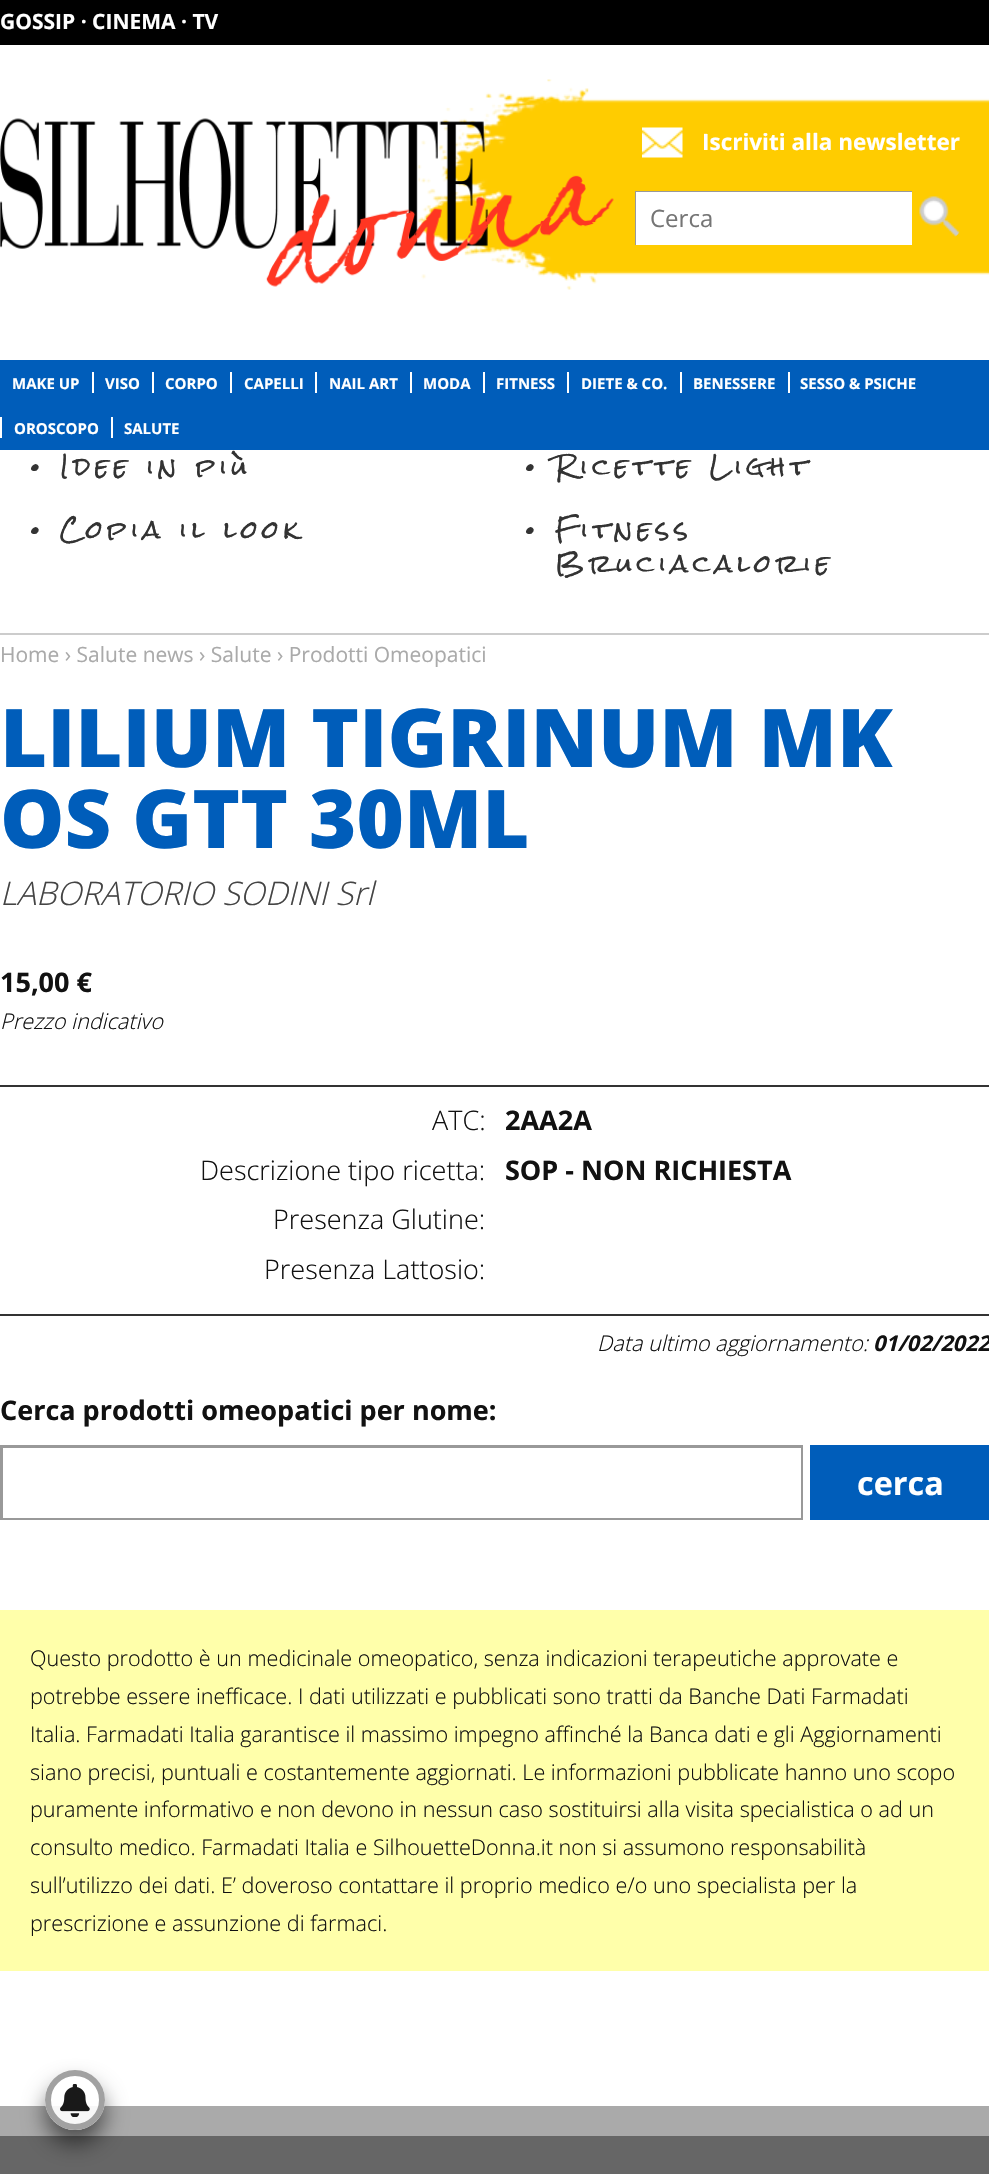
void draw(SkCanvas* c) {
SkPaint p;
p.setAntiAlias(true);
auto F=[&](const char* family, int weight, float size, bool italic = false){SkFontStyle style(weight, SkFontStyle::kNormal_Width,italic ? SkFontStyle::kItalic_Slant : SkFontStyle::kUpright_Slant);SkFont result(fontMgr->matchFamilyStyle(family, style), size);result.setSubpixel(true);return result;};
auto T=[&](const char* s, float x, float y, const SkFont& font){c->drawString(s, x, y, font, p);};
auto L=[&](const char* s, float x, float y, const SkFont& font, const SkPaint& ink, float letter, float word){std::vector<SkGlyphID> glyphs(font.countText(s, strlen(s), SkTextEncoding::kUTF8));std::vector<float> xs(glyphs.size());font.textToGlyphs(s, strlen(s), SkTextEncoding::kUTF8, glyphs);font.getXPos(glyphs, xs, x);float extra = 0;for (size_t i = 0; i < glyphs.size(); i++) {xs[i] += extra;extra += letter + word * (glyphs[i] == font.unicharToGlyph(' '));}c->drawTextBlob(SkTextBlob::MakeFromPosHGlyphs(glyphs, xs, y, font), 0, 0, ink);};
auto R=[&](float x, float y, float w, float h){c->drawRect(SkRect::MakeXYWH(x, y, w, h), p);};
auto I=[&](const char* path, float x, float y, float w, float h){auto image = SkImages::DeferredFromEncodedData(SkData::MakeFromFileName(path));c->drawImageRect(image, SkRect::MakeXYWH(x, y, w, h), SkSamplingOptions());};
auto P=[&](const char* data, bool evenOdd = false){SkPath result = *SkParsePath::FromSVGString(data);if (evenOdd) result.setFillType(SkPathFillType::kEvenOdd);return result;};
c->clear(0xffffffff);
p.setColor(0xff000000);
R(0,0,989,45);
auto f1 = F("Open Sans",700,21);
p.setColor(0xffffffff);
T("GOSSIP · CINEMA · TV",0,29,f1);
I("2.png",418,79,571,211);
I("1.png",0,118,614,169);
I("3.png",642,127,41,31);
auto f2 = F("Open Sans",700,22.5);
T("Iscriviti alla newsletter",702,150,f2);
R(636,192,276,53);
c->save();
c->clipRect(SkRect::MakeXYWH(635,191,277,54));
p.setColor(0xff999999);
c->drawPath(P("M486 42h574v351h-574zm150 150h278v54h-278z",true),p);
c->restore();
auto f3 = F("Open Sans",400,24);
p.setColor(0xff757575);
T("Cerca",650,227,f3);
I("4.png",919,196,41,41);
p.setColor(0xff005dba);
R(0,360,989,90);
auto f4 = F("Open Sans",700,15);
p.setColor(0xffffffff);
T("MAKE UP",12,389,f4);
R(92,372,2,21);
T("VISO",105,389,f4);
R(152,372,2,21);
T("CORPO",165,389,f4);
R(230,372,2,21);
T("CAPELLI",244,389,f4);
R(315,372,2,21);
T("NAIL ART",329,389,f4);
R(410,372,2,21);
T("MODA",423,389,f4);
R(483,372,2,21);
T("FITNESS",496,389,f4);
R(567,372,2,21);
T("DIETE & CO.",581,389,f4);
R(680,372,2,21);
T("BENESSERE",693,389,f4);
R(788,372,2,21);
T("SESSO & PSICHE",800,389,f4);
R(0,417,2,21);
T("OROSCOPO",14,434,f4);
R(111,417,2,21);
T("SALUTE",124,434,f4);
auto f5 = F("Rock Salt",400,24);
p.setColor(0xff333333);
L("•",30,476,f5,p,4.75,0);
L("Idee in più",60,476,f5,p,4.75,0);
L("•",525,476,f5,p,4.75,0);
L("Ricette Light",555,476,f5,p,4.75,0);
L("•",30,539,f5,p,4.75,0);
L("Copia il look",60,539,f5,p,4.75,0);
L("•",525,539,f5,p,4.75,0);
L("Fitness",555,539,f5,p,4.75,0);
L("Bruciacalorie",555,573,f5,p,4.75,0);
p.setColor(0xffcccccc);
R(0,633,989,2);
auto f6 = F("Open Sans",400,21);
p.setColor(0xffaaaaaa);
T("Home › Salute news › Salute › Prodotti Omeopatici",0,662,f6);
auto f7 = F("Open Sans",800,81);
p.setColor(0xff005dba);
T("LILIUM TIGRINUM MK",0,767,f7);
T("OS GTT 30ML",0,848,f7);
auto f8 = F("Open Sans",300,32.4,true);
p.setColor(0xff444444);
T("LABORATORIO SODINI Srl",0,905,f8);
auto f9 = F("Open Sans",700,27);
p.setColor(0xff111111);
T("15,00 €",0,992,f9);
auto f10 = F("Open Sans",300,21.6,true);
T("Prezzo indicativo",0,1029,f10);
p.setColor(0xff333333);
R(0,1085,989,2);
R(0,1314,989,2);
auto f11 = F("Open Sans",300,27);
p.setColor(0xff111111);
T("ATC:",432,1130,f11);
T("2AA2A",505,1130,f9);
T("Descrizione tipo ricetta:",200,1180,f11);
T("SOP - NON RICHIESTA",505,1180,f9);
T("Presenza Glutine:",273,1229,f11);
T("Presenza Lattosio:",264,1279,f11);
T("Data ultimo aggiornamento:",597,1351,f10);
auto f12 = F("Open Sans",700,21.6,true);
T("01/02/2022",873,1351,f12);
T("Cerca prodotti omeopatici per nome:",0,1420,f9);
c->save();
c->clipRect(SkRect::MakeXYWH(2,1446,799,72));
p.setColor(0xff999999);
c->drawPath(P("M-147 1298h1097v368h-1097zm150 150h799v72h-799z",true),p);
c->restore();
p.setStroke(true);
p.setStrokeWidth(2);
c->drawRect(SkRect::MakeXYWH(1,1446,801,73),p);
p.setStroke(false);
p.setColor(0xff005dba);
R(810,1445,179,75);
auto f13 = F("Open Sans",700,32.4);
p.setColor(0xffffffff);
T("cerca",857,1495,f13);
p.setColor(0xffffffaa);
R(0,1610,989,361);
auto f14 = F("Open Sans",300,21.6);
p.setColor(0xff111111);
T("Questo prodotto è un medicinale omeopatico, senza indicazioni terapeutiche approvate e",30,1666,f14);
T("potrebbe essere inefficace. I dati utilizzati e pubblicati sono tratti da Banche Dati Farmadati",30,1704,f14);
T("Italia. Farmadati Italia garantisce il massimo impegno affinché la Banca dati e gli Aggiornamenti",30,1742,f14);
T("siano precisi, puntuali e costantemente aggiornati. Le informazioni pubblicate hanno uno scopo",30,1780,f14);
T("puramente informativo e non devono in nessun caso sostituirsi alla visita specialistica o ad un",30,1817,f14);
T("consulto medico. Farmadati Italia e SilhouetteDonna.it non si assumono responsabilità",30,1855,f14);
T("sull’utilizzo dei dati. E’ doveroso contattare il proprio medico e/o uno specialista per la",30,1893,f14);
T("prescrizione e assunzione di farmaci.",30,1931,f14);
p.setColor(0xff666666);
R(0,2136,989,38);
p.setColor(0xffaaaaaa);
R(0,2106,989,30);
c->save();
c->clipPath(P("M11 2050h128v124h-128zm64 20c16.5 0 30 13.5 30 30c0 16.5-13.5 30-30 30c-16.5 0-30-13.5-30-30c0-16.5 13.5-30 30-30z",true),true);
p.setColor(0x8a000000);
p.setMaskFilter(SkMaskFilter::MakeBlur(kNormal_SkBlurStyle, 11));
c->drawRoundRect(SkRect::MakeXYWH(45,2084,60,60),30,30,p);
p.setMaskFilter(nullptr);
c->restore();
p.setColor(0xe6ffffff);
c->drawCircle(75,2100,30,p);
p.setStroke(true);
p.setStrokeWidth(6);
p.setColor(0xe6979797);
c->drawCircle(75,2100,27,p);
I("5.png",60,2084,30,33);
}
